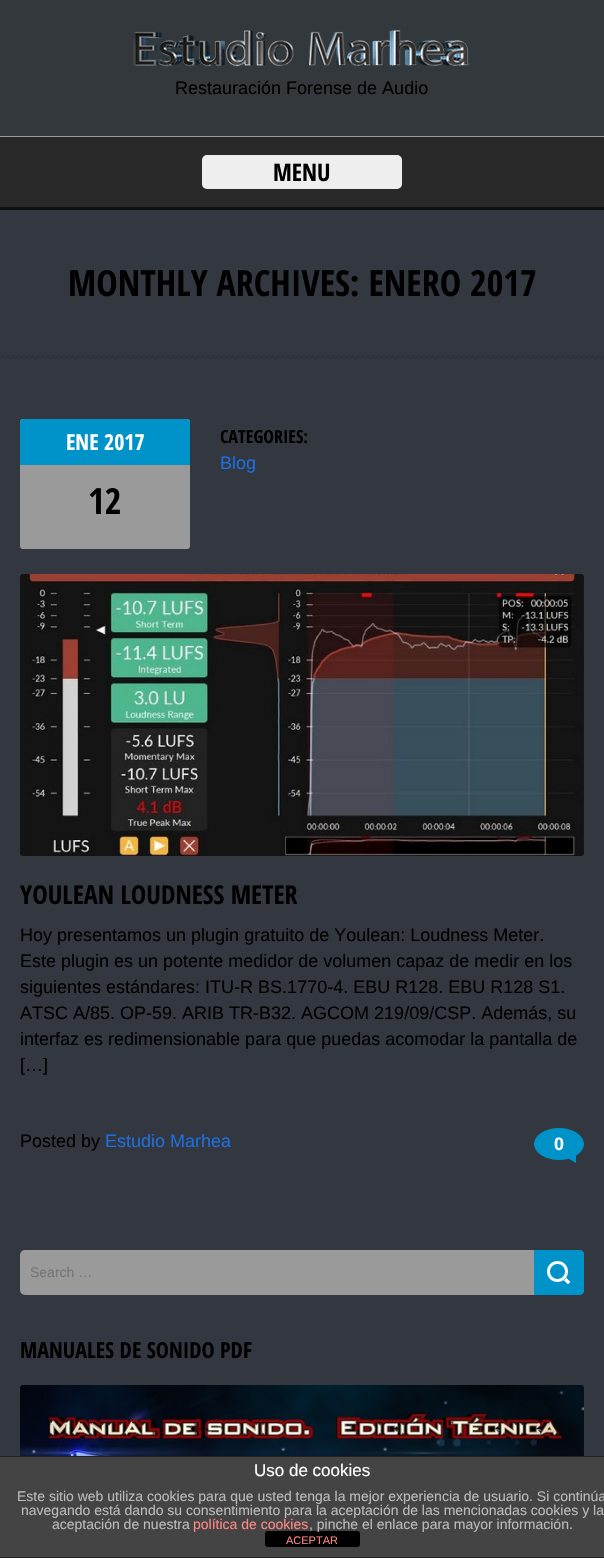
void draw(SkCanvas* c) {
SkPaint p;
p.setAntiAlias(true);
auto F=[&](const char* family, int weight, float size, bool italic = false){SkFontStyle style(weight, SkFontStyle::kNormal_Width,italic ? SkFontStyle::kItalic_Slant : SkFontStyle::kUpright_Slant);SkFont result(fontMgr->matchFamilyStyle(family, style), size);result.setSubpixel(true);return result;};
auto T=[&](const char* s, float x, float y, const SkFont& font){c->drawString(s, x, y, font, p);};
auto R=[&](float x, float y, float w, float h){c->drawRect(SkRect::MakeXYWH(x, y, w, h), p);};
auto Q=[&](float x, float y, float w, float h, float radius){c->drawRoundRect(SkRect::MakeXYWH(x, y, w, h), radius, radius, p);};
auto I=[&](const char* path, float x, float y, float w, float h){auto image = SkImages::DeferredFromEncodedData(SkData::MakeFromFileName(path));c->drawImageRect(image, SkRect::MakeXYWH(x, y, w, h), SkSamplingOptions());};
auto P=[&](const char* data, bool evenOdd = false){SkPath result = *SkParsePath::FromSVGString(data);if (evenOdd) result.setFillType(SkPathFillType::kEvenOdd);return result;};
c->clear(0xff323740);
p.setColor(0xff0f1010);
R(0,207,604,3);
p.setColor(0xff33383c);
R(0,0,604,136);
I("1.png",133,30,337,37);
auto f1 = F("Liberation Sans",400,18);
p.setColor(0xff000000);
T("Restauración Forense de Audio",175,94,f1);
p.setColor(0xff292929);
R(0,137,604,70);
p.setColor(0xff9a9a9a);
R(0,136,604,1);
p.setColor(0xffeeeeee);
Q(202,155,200,34,5);
auto f2 = F("Open Sans Condensed",700,24);
p.setColor(0xff000000);
T("MENU",273,181,f2);
auto f3 = F("Open Sans Condensed",700,36);
T("MONTHLY ARCHIVES: ENERO 2017",68,296,f3);
I("2.png",0,355,604,4);
p.setColor(0xff9a9a9a);
Q(20,419,170,130,3);
p.setColor(0xff0093c9);
c->drawPath(P("M23 419h164c1.5 0 3 1.5 3 3v43h-170v-43c0-1.5 1.5-3 3-3z"),p);
auto f4 = F("Open Sans Condensed",700,22);
p.setColor(0xffffffff);
T("ENE 2017",66,450,f4);
p.setColor(0xff000000);
T("12",88,514,f3);
auto f5 = F("Open Sans Condensed",700,18);
T("CATEGORIES:",220,443,f5);
p.setColor(0xff1e6edd);
T("Blog",220,469,f1);
I("3.png",20,574,564,282);
auto f6 = F("Open Sans Condensed",700,26);
p.setColor(0xff000000);
T("YOULEAN LOUDNESS METER",20,904,f6);
T("Hoy presentamos un plugin gratuito de Youlean: Loudness Meter.",20,941,f1);
T("Este plugin es un potente medidor de volumen capaz de medir en los",20,967,f1);
T("siguientes estándares: ITU-R BS.1770-4. EBU R128. EBU R128 S1.",20,993,f1);
T("ATSC A/85. OP-59. ARIB TR-B32. AGCOM 219/09/CSP. Además, su",20,1019,f1);
T("interfaz es redimensionable para que puedas acomodar la pantalla de",20,1045,f1);
T("[…]",20,1071,f1);
T("Posted by",20,1147,f1);
p.setColor(0xff1e6edd);
T("Estudio Marhea",105,1147,f1);
p.setColor(0xff0093c9);
c->drawPath(P("M576 1156v7l-12-7z"),p);
c->drawOval(SkRect::MakeXYWH(534,1128,50,32),p);
auto f7 = F("Liberation Sans",700,18);
p.setColor(0xffffffff);
T("0",554,1150,f7);
p.setColor(0xff9a9a9a);
Q(20,1250,564,45,5);
auto f8 = F("Liberation Sans",400,14);
p.setColor(0xff757575);
T("Search …",30,1277,f8);
p.setColor(0xff0093c9);
c->drawPath(P("M534 1250h45c3 0 5 2 5 5v35c0 3-2 5-5 5h-45z"),p);
I("4.png",547,1261,23,23);
p.setColor(0xff000000);
T("MANUALES DE SONIDO PDF",20,1358,f4);
I("5.png",20,1385,564,71);
p.setColor(0xff444444);
R(0,1457,604,100);
p.setColor(0xff222222);
R(0,1456,604,1);
R(0,1557,604,1);
auto f9 = F("Liberation Sans",400,17);
p.setColor(0xffffffff);
T("Uso de cookies",254,1476,f9);
p.setColor(0xffbbbbbb);
T("Este sitio web utiliza cookies para que usted tenga la mejor experiencia de usuario. Si continúa",17,1501,f8);
T("navegando está dando su consentimiento para la aceptación de las mencionadas cookies y la",21,1515,f8);
T("aceptación de nuestra",52,1529,f8);
p.setColor(0xff000000);
Q(265,1531,95,16,3);
p.setColor(0xffff8888);
T("política de cookies",193,1529,f8);
p.setColor(0xffbbbbbb);
T(", pinche el enlace para mayor información.",309,1529,f8);
auto f10 = F("Liberation Sans",400,11);
p.setColor(0xffff8888);
T("ACEPTAR",286,1544,f10);
}
